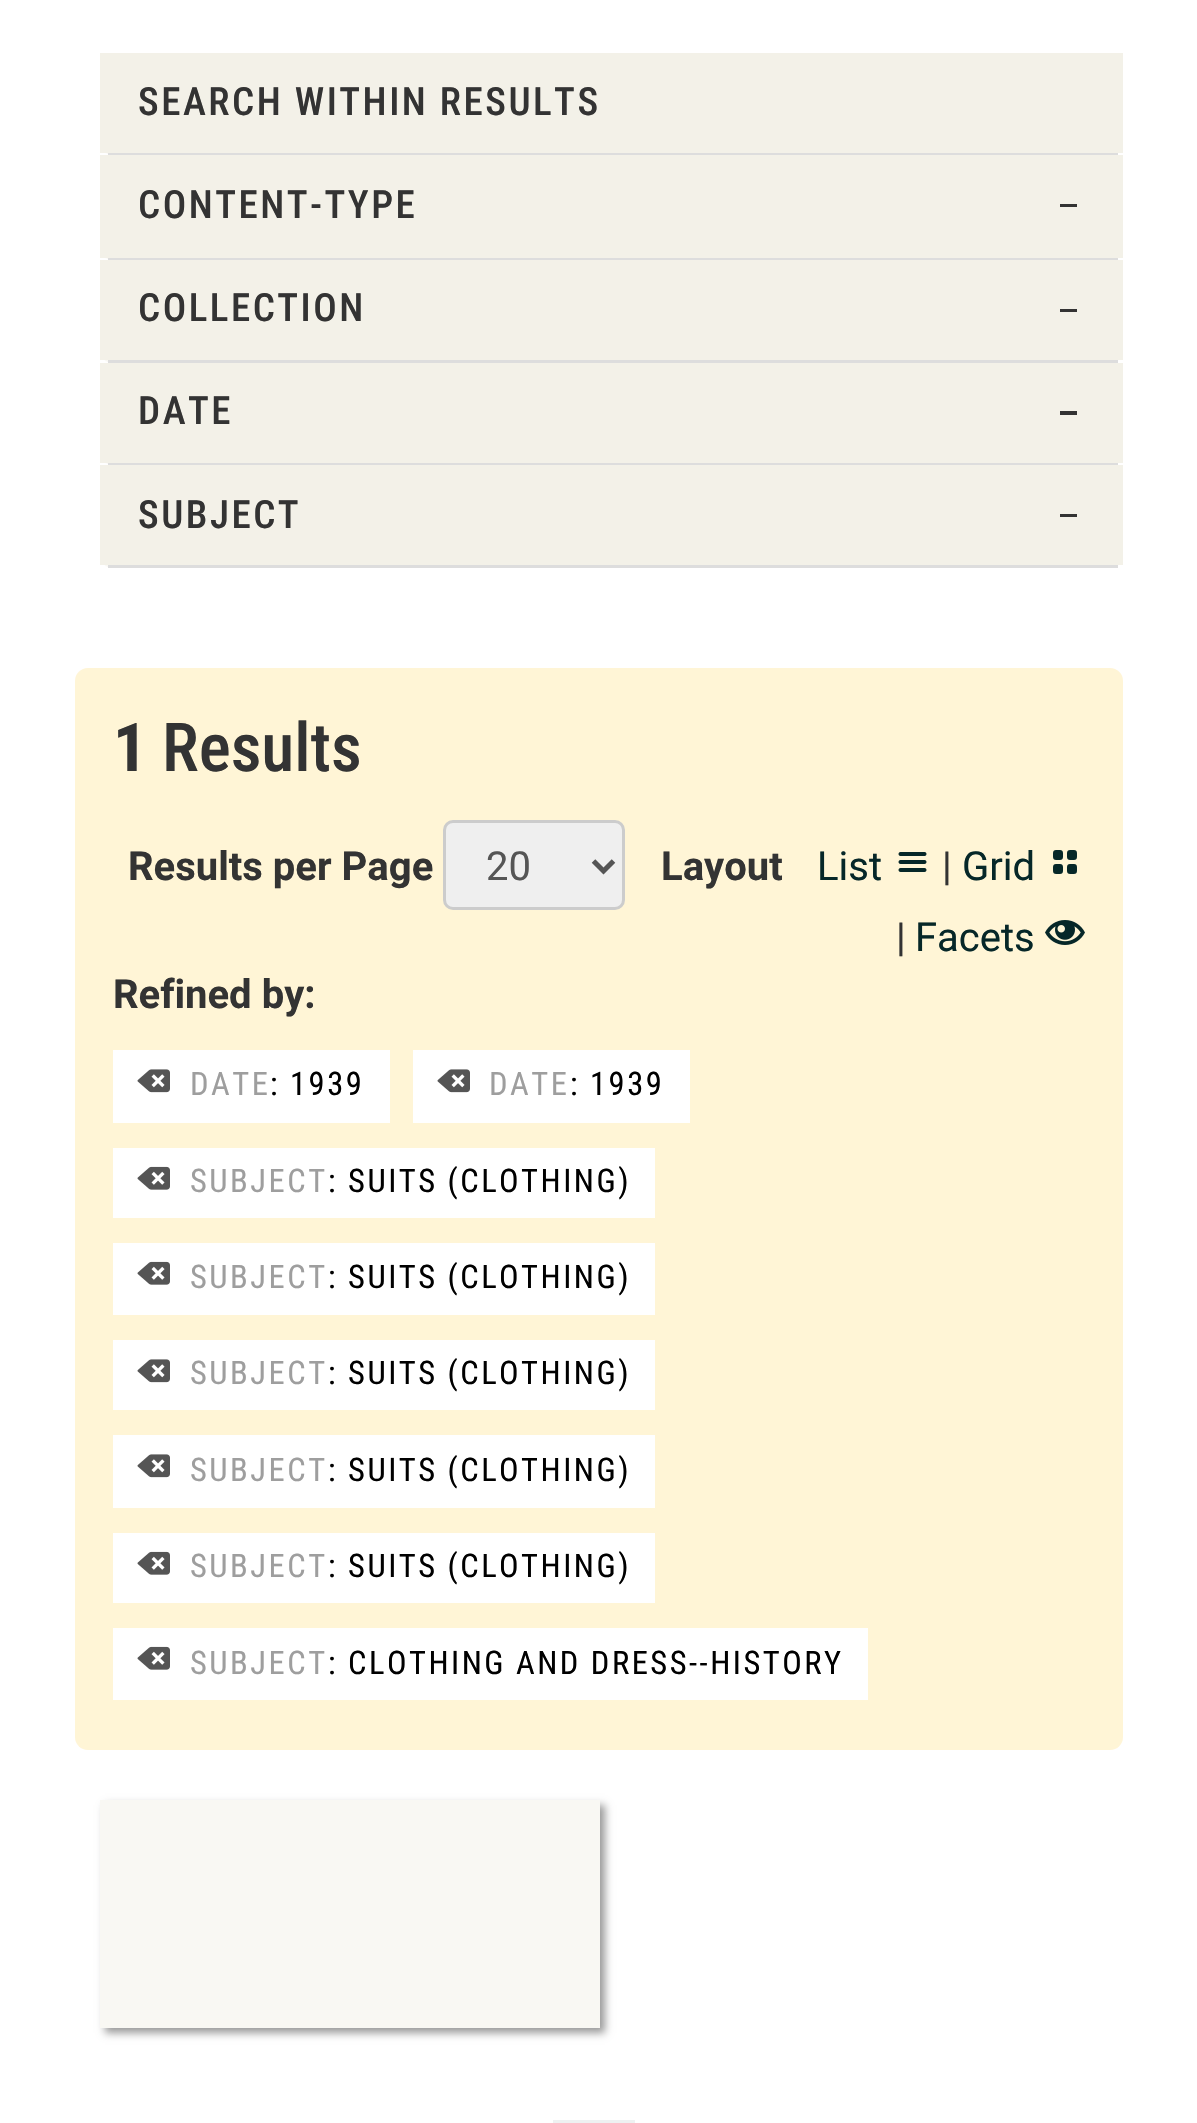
void draw(SkCanvas* c) {
SkPaint p;
p.setAntiAlias(true);
auto F=[&](const char* family, int weight, float size, bool italic = false){SkFontStyle style(weight, SkFontStyle::kNormal_Width,italic ? SkFontStyle::kItalic_Slant : SkFontStyle::kUpright_Slant);SkFont result(fontMgr->matchFamilyStyle(family, style), size);result.setSubpixel(true);return result;};
auto T=[&](const char* s, float x, float y, const SkFont& font){c->drawString(s, x, y, font, p);};
auto L=[&](const char* s, float x, float y, const SkFont& font, const SkPaint& ink, float letter, float word){std::vector<SkGlyphID> glyphs(font.countText(s, strlen(s), SkTextEncoding::kUTF8));std::vector<float> xs(glyphs.size());font.textToGlyphs(s, strlen(s), SkTextEncoding::kUTF8, glyphs);font.getXPos(glyphs, xs, x);float extra = 0;for (size_t i = 0; i < glyphs.size(); i++) {xs[i] += extra;extra += letter + word * (glyphs[i] == font.unicharToGlyph(' '));}c->drawTextBlob(SkTextBlob::MakeFromPosHGlyphs(glyphs, xs, y, font), 0, 0, ink);};
auto R=[&](float x, float y, float w, float h){c->drawRect(SkRect::MakeXYWH(x, y, w, h), p);};
auto Q=[&](float x, float y, float w, float h, float radius){c->drawRoundRect(SkRect::MakeXYWH(x, y, w, h), radius, radius, p);};
auto I=[&](const char* path, float x, float y, float w, float h){auto image = SkImages::DeferredFromEncodedData(SkData::MakeFromFileName(path));c->drawImageRect(image, SkRect::MakeXYWH(x, y, w, h), SkSamplingOptions());};
auto P=[&](const char* data, bool evenOdd = false){SkPath result = *SkParsePath::FromSVGString(data);if (evenOdd) result.setFillType(SkPathFillType::kEvenOdd);return result;};
c->clear(0xffffffff);
p.setColor(0xfff9f8f3);
Q(100,53,1023,102,13);
p.setColor(0xffdddddd);
R(108,153,1010,2);
p.setColor(0xfff3f1e8);
R(100,53,1023,100);
auto f1 = F("Roboto Condensed",500,39);
p.setColor(0xff333333);
L("SEARCH WITHIN RESULTS",138,115,f1,p,2.5,0);
p.setColor(0xfff9f8f3);
Q(100,155,1023,105,13);
p.setColor(0xffdddddd);
R(108,258,1010,2);
p.setColor(0xfff3f1e8);
R(100,155,1023,103);
p.setColor(0xff333333);
L("CONTENT-TYPE",138,218,f1,p,2.5,0);
R(1060,204,17,3);
p.setColor(0xfff9f8f3);
Q(100,260,1023,103,13);
p.setColor(0xffdddddd);
R(108,360,1010,3);
p.setColor(0xfff3f1e8);
R(100,260,1023,100);
p.setColor(0xff333333);
L("COLLECTION",138,321,f1,p,2.5,0);
R(1060,309,17,3);
p.setColor(0xfff9f8f3);
Q(100,363,1023,102,13);
p.setColor(0xffdddddd);
R(108,463,1010,2);
p.setColor(0xfff3f1e8);
R(100,363,1023,100);
p.setColor(0xff333333);
L("DATE",138,424,f1,p,2.5,0);
R(1060,411,17,4);
p.setColor(0xfff9f8f3);
Q(100,465,1023,103,13);
p.setColor(0xffdddddd);
R(108,565,1010,3);
p.setColor(0xfff3f1e8);
R(100,465,1023,100);
p.setColor(0xff333333);
L("SUBJECT",138,528,f1,p,2.5,0);
R(1060,514,17,3);
p.setColor(0xfffff5d6);
Q(75,668,1048,1082,13);
auto f2 = F("Roboto Condensed",700,67.5);
p.setColor(0xff333333);
T("1",113,771,f2);
auto f3 = F("Roboto Condensed",500,67.5);
T("Results",162,771,f3);
auto f4 = F("Roboto",700,40);
T("Results per Page",128,880,f4);
p.setColor(0xffefefef);
c->drawRoundRect(SkRect::MakeXYWH(444.5,821.5,179,87),8.5,8.5,p);
p.setStroke(true);
p.setStrokeWidth(3);
p.setColor(0xffcccccc);
c->drawRoundRect(SkRect::MakeXYWH(444.5,821.5,179,87),8.5,8.5,p);
p.setStrokeWidth(5);
p.setColor(0xff555555);
c->drawPath(P("M593.5 861l10 10l10-10"),p);
auto f5 = F("Roboto",400,40);
p.setStroke(false);
T("20",486,880,f5);
p.setColor(0xff333333);
T("Layout",661,880,f4);
p.setColor(0xff062728);
T("List",817,880,f5);
I("1.png",898,852,29,20);
p.setColor(0xff333333);
T("|",942,880,f5);
p.setColor(0xff062728);
T("Grid",962,880,f5);
I("2.png",1053,850,24,24);
p.setColor(0xff333333);
T("|",896,951,f5);
p.setColor(0xff062728);
T("Facets",915,951,f5);
I("3.png",1045,920,40,25);
p.setColor(0xff333333);
T("Refined by:",113,1008,f4);
p.setColor(0xffffffff);
R(113,1050,277,73);
I("4.png",137,1069,33,24);
auto f6 = F("Roboto Condensed",400,32.5);
p.setColor(0xff9e9e9e);
L("DATE",190,1095,f6,p,2.5,0);
p.setColor(0xff000000);
L(": 1939",270,1095,f6,p,2.5,0);
p.setColor(0xffffffff);
R(413,1050,277,73);
I("4.png",437,1069,33,24);
p.setColor(0xff9e9e9e);
L("DATE",489,1095,f6,p,2.5,0);
p.setColor(0xff000000);
L(": 1939",570,1095,f6,p,2.5,0);
p.setColor(0xffffffff);
R(113,1148,542,70);
I("5.png",137,1166,33,24);
p.setColor(0xff9e9e9e);
L("SUBJECT",190,1192,f6,p,2.5,0);
p.setColor(0xff000000);
L(": SUITS (CLOTHING)",328,1192,f6,p,2.5,0);
p.setColor(0xffffffff);
R(113,1243,542,72);
I("5.png",137,1261,33,24);
p.setColor(0xff9e9e9e);
L("SUBJECT",190,1288,f6,p,2.5,0);
p.setColor(0xff000000);
L(": SUITS (CLOTHING)",328,1288,f6,p,2.5,0);
p.setColor(0xffffffff);
R(113,1340,542,70);
I("4.png",137,1359,33,24);
p.setColor(0xff9e9e9e);
L("SUBJECT",190,1384,f6,p,2.5,0);
p.setColor(0xff000000);
L(": SUITS (CLOTHING)",328,1384,f6,p,2.5,0);
p.setColor(0xffffffff);
R(113,1435,542,73);
I("4.png",137,1454,33,24);
p.setColor(0xff9e9e9e);
L("SUBJECT",190,1481,f6,p,2.5,0);
p.setColor(0xff000000);
L(": SUITS (CLOTHING)",328,1481,f6,p,2.5,0);
p.setColor(0xffffffff);
R(113,1533,542,70);
I("5.png",137,1551,33,24);
p.setColor(0xff9e9e9e);
L("SUBJECT",190,1577,f6,p,2.5,0);
p.setColor(0xff000000);
L(": SUITS (CLOTHING)",328,1577,f6,p,2.5,0);
p.setColor(0xffffffff);
R(113,1628,755,72);
I("5.png",137,1646,33,24);
p.setColor(0xff9e9e9e);
L("SUBJECT",190,1674,f6,p,2.5,0);
p.setColor(0xff000000);
L(": CLOTHING AND DRESS--HISTORY",328,1674,f6,p,2.5,0);
p.setColor(0x66000000);
p.setMaskFilter(SkMaskFilter::MakeBlur(kNormal_SkBlurStyle, 4));
c->drawRect(SkRect::MakeXYWH(105,1805,500,228),p);
p.setMaskFilter(nullptr);
p.setColor(0xfff9f8f3);
R(100,1800,500,228);
p.setColor(0xffeef1f1);
R(553,2120,82,3);
}
